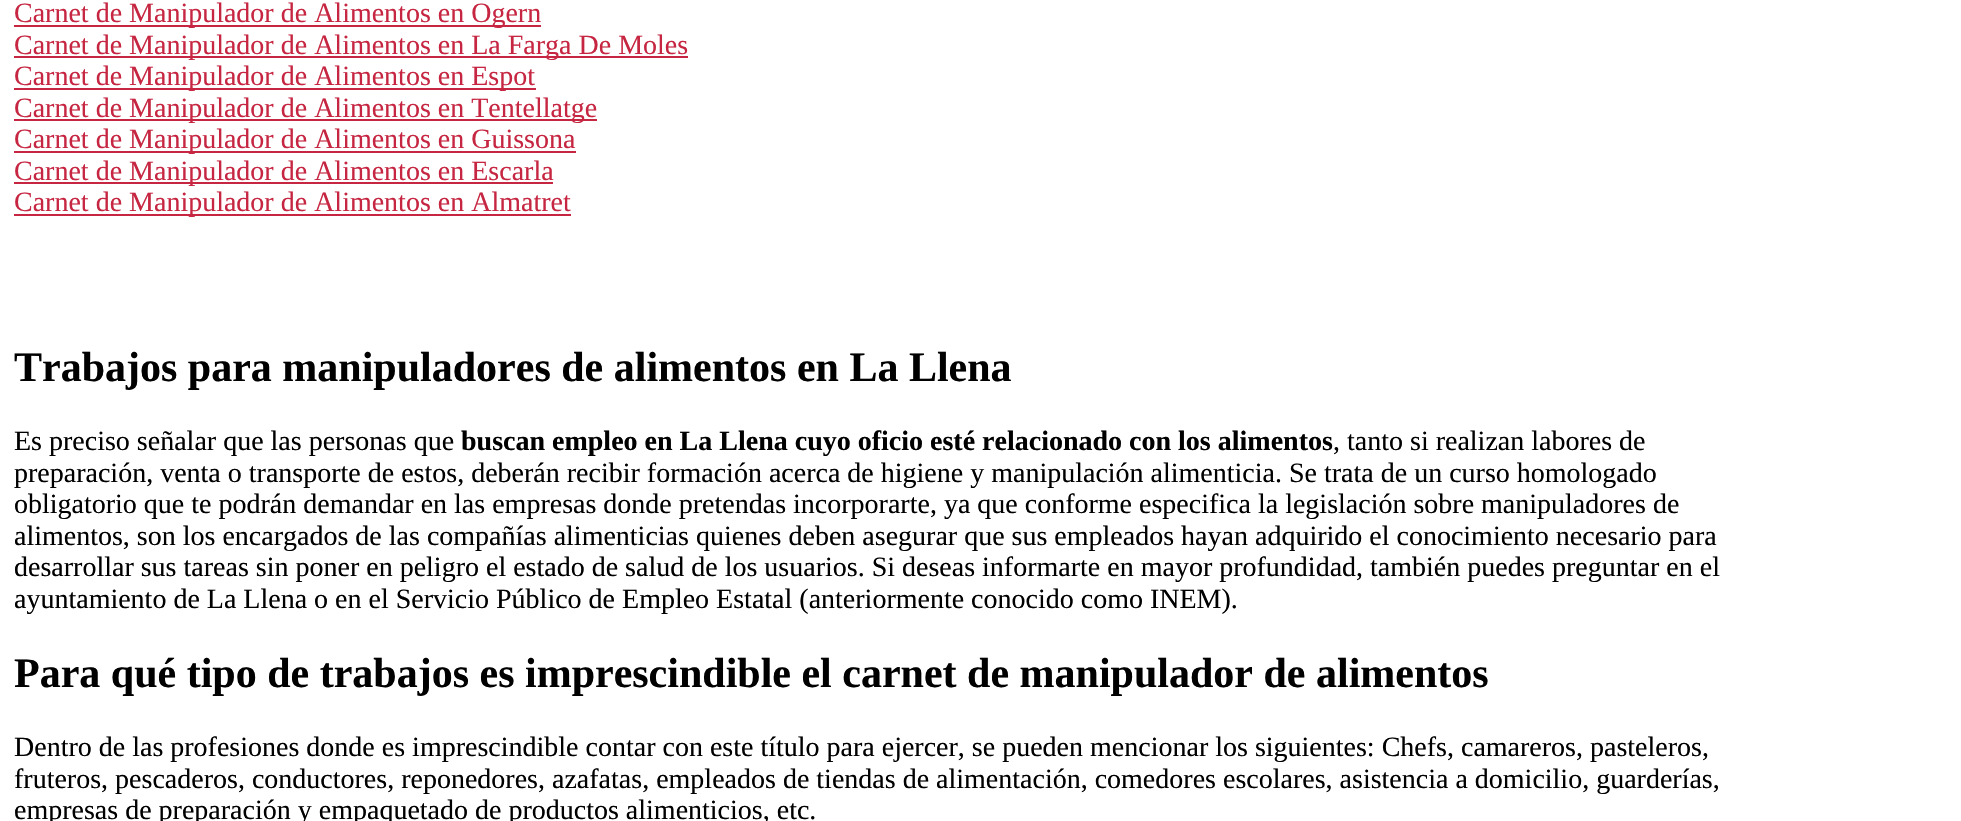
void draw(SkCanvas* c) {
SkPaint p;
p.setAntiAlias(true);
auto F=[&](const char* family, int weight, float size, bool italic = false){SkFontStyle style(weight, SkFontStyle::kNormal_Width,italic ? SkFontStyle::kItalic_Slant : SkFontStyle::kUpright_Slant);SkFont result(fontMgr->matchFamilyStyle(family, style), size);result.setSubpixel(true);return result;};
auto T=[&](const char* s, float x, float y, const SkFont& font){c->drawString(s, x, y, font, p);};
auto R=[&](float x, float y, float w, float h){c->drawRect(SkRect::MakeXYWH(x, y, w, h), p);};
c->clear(0xffffffff);
p.setColor(0xffc62641);
R(14,25,527,2);
auto f1 = F("Liberation Serif",400,28);
T("Carnet de Manipulador de Alimentos en Ogern",14,22,f1);
R(14,56,674,2);
T("Carnet de Manipulador de Alimentos en La Farga De Moles",14,54,f1);
R(14,88,522,2);
T("Carnet de Manipulador de Alimentos en Espot",14,85,f1);
R(14,119,583,2);
T("Carnet de Manipulador de Alimentos en Tentellatge",14,117,f1);
R(14,151,562,2);
T("Carnet de Manipulador de Alimentos en Guissona",14,148,f1);
R(14,182,539,2);
T("Carnet de Manipulador de Alimentos en Escarla",14,180,f1);
R(14,214,557,2);
T("Carnet de Manipulador de Alimentos en Almatret",14,211,f1);
auto f2 = F("Liberation Serif",700,42);
p.setColor(0xff000000);
T("Trabajos para manipuladores de alimentos en La Llena",14,381,f2);
T("Es preciso señalar que las personas que",14,450,f1);
auto f3 = F("Liberation Serif",700,28);
T("buscan empleo en La Llena cuyo oficio esté relacionado con los alimentos",461,450,f3);
T(", tanto si realizan labores de",1333,450,f1);
T("preparación, venta o transporte de estos, deberán recibir formación acerca de higiene y manipulación alimenticia. Se trata de un curso homologado",14,482,f1);
T("obligatorio que te podrán demandar en las empresas donde pretendas incorporarte, ya que conforme especifica la legislación sobre manipuladores de",14,513,f1);
T("alimentos, son los encargados de las compañías alimenticias quienes deben asegurar que sus empleados hayan adquirido el conocimiento necesario para",14,545,f1);
T("desarrollar sus tareas sin poner en peligro el estado de salud de los usuarios. Si deseas informarte en mayor profundidad, también puedes preguntar en el",14,576,f1);
T("ayuntamiento de La Llena o en el Servicio Público de Empleo Estatal (anteriormente conocido como INEM).",14,608,f1);
T("Para qué tipo de trabajos es imprescindible el carnet de manipulador de alimentos",14,687,f2);
T("Dentro de las profesiones donde es imprescindible contar con este título para ejercer, se pueden mencionar los siguientes: Chefs, camareros, pasteleros,",14,756,f1);
T("fruteros, pescaderos, conductores, reponedores, azafatas, empleados de tiendas de alimentación, comedores escolares, asistencia a domicilio, guarderías,",14,788,f1);
T("empresas de preparación y empaquetado de productos alimenticios, etc.",14,819,f1);
}
